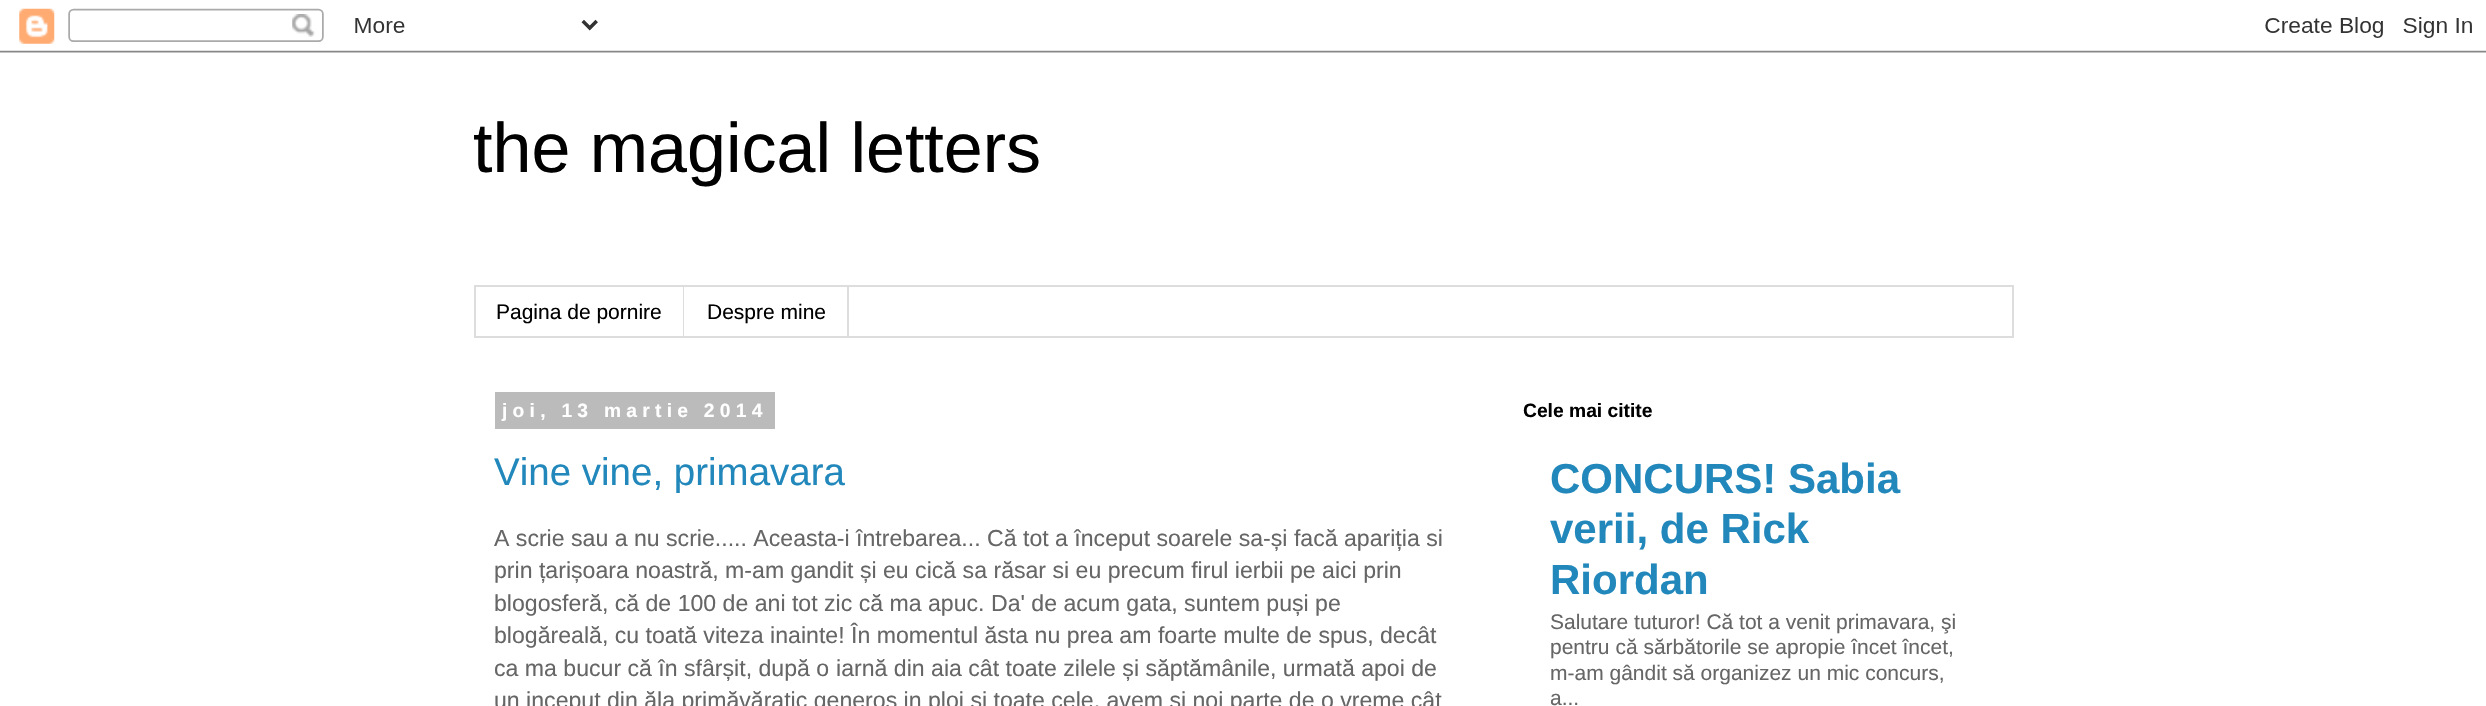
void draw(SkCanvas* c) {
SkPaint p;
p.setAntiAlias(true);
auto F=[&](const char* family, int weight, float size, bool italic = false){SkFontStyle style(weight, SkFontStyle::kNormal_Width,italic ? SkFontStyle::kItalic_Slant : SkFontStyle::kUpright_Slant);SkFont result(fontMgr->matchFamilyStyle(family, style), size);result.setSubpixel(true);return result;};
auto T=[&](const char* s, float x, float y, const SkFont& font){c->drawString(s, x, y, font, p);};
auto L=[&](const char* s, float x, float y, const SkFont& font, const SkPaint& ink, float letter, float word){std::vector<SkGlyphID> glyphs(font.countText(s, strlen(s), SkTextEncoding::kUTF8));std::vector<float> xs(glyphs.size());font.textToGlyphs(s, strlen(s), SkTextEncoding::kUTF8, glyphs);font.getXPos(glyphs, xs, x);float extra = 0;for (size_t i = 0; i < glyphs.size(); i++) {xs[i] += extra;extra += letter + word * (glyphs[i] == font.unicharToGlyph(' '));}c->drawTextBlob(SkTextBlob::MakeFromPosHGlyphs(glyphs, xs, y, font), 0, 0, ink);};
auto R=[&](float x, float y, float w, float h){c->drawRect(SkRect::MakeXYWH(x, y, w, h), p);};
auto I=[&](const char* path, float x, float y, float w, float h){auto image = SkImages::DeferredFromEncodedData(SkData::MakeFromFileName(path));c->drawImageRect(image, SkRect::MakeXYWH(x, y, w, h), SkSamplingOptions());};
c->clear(0xffffffff);
I("1.png",0,8,2486,45);
auto f1 = F("Liberation Sans",400,70);
p.setColor(0xff000000);
T("the magical letters",473,172,f1);
p.setStroke(true);
p.setStrokeWidth(2);
p.setColor(0xffdddddd);
c->drawRect(SkRect::MakeXYWH(475,286,1538,51),p);
p.setStroke(false);
R(683,287,1,49);
auto f2 = F("Liberation Sans",400,21);
p.setColor(0xff000000);
T("Pagina de pornire",496,319,f2);
p.setColor(0xffdddddd);
R(847,287,2,49);
p.setColor(0xff000000);
T("Despre mine",707,319,f2);
p.setColor(0xffbbbbbb);
R(495,392,280,37);
auto f3 = F("Liberation Sans",700,19.25);
p.setColor(0xffffffff);
L("joi, 13 martie 2014",502,417,f3,p,5.25,0);
auto f4 = F("Liberation Sans",400,38.5);
p.setColor(0xff2288bb);
T("Vine vine, primavara",494,485,f4);
auto f5 = F("Liberation Sans",400,23.1);
p.setColor(0xff666666);
T("A scrie sau a nu scrie..... Aceasta-i întrebarea... Că tot a început soarele sa-și facă apariția si",494,546,f5);
T("prin țarișoara noastră, m-am gandit și eu cică sa răsar si eu precum firul ierbii pe aici prin",494,578,f5);
T("blogosferă, că de 100 de ani tot zic că ma apuc. Da' de acum gata, suntem puși pe",494,611,f5);
T("blogăreală, cu toată viteza inainte! În momentul ăsta nu prea am foarte multe de spus, decât",494,643,f5);
T("ca ma bucur că în sfârșit, după o",494,676,f5);
T("iarnă din aia cât toate zilele și săptămânile, urmată apoi de",836,676,f5);
T("un inceput din ăla primăvăratic generos in ploi și toate cele, avem și noi parte de o vreme cât",494,708,f5);
p.setColor(0xff000000);
T("Cele mai citite",1523,417,f3);
auto f6 = F("Liberation Sans",700,42);
p.setColor(0xff2288bb);
T("CONCURS! Sabia",1550,493,f6);
T("verii, de Rick",1550,543,f6);
T("Riordan",1550,594,f6);
p.setColor(0xff666666);
T("Salutare tuturor! Că tot a venit primavara, şi",1550,629,f2);
T("pentru că sărbătorile se apropie încet încet,",1550,654,f2);
T("m-am gândit să organizez un mic concurs,",1550,680,f2);
T("a...",1550,705,f2);
}
